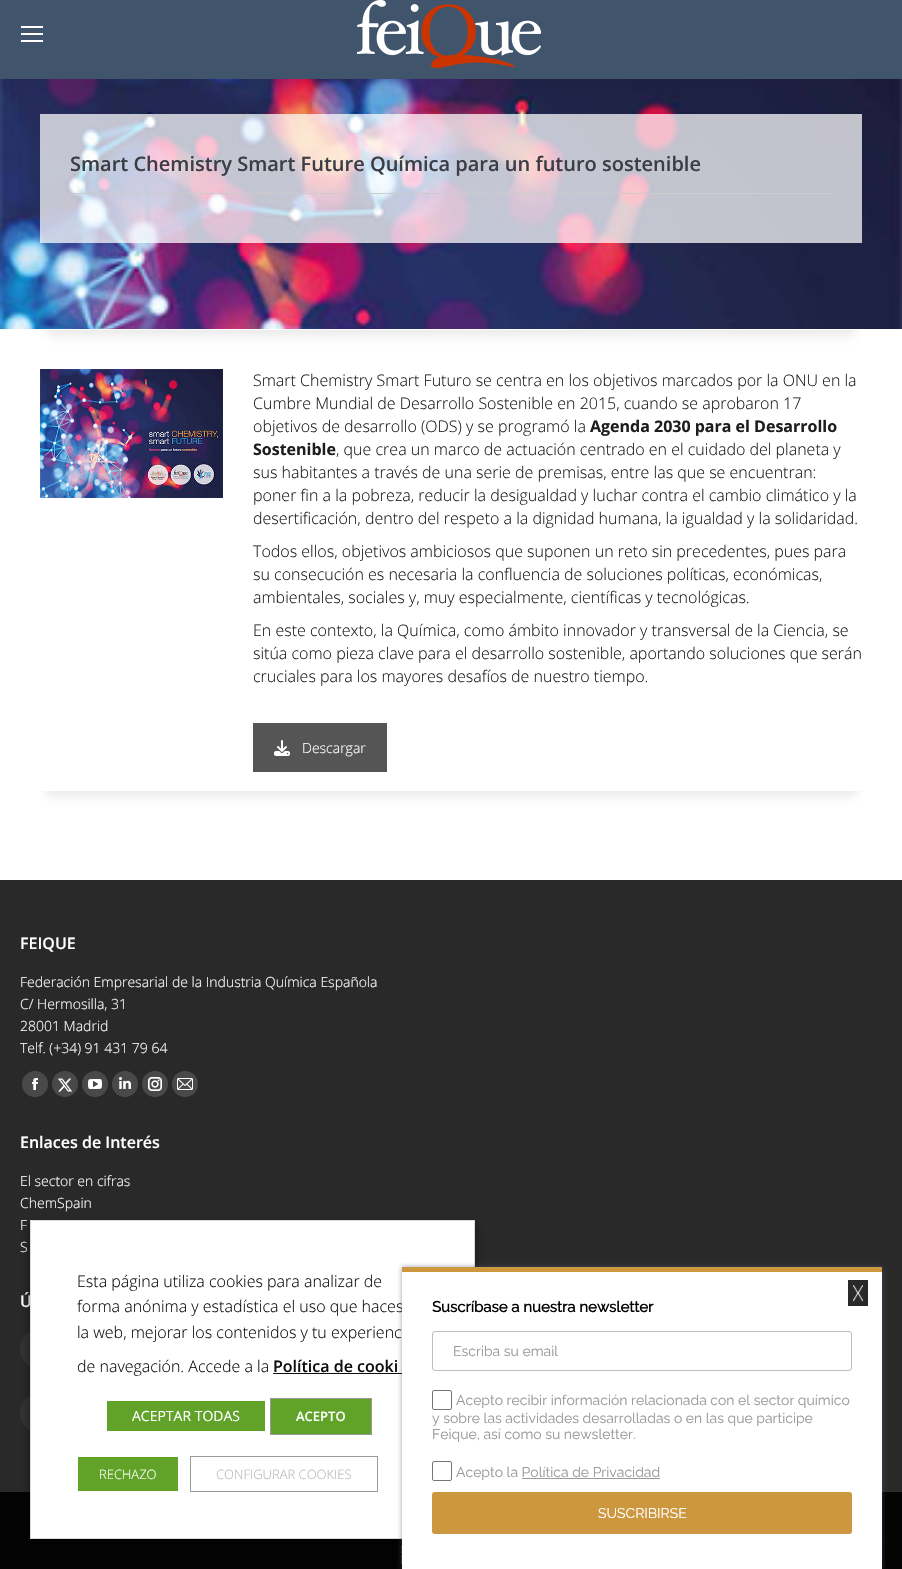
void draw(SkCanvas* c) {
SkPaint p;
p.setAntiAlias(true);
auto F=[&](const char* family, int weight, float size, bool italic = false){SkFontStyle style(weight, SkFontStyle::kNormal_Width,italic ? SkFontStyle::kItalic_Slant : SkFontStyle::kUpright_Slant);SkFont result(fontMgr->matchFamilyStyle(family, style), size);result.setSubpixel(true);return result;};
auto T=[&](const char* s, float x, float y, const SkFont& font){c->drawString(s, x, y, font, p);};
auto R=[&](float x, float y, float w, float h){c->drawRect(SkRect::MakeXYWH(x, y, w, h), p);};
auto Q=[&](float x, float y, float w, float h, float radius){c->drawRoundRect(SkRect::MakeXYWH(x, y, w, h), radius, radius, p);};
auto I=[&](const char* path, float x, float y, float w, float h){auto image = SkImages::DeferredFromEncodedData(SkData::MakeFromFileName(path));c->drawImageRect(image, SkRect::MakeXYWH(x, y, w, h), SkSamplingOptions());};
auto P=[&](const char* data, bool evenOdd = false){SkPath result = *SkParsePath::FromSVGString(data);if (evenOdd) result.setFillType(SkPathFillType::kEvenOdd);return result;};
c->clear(0xffffffff);
I("2.png",0,79,902,250);
p.setColor(0x12000000);
p.setMaskFilter(SkMaskFilter::MakeBlur(kNormal_SkBlurStyle, 7.5));
c->drawRect(SkRect::MakeXYWH(-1,-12,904,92),p);
p.setMaskFilter(nullptr);
p.setColor(0xff40546b);
R(0,0,902,79);
p.setColor(0xffffffff);
R(21,26,22,2);
R(21,33,22,2);
R(21,40,22,2);
I("1.png",357,0,184,68);
p.setColor(0xbaffffff);
R(40,114,822,129);
auto f1 = F("Open Sans",600,20);
p.setColor(0xff3c3e45);
T("Smart Chemistry Smart Future Química para un futuro sostenible",70,171,f1);
p.setColor(0xffcccccc);
R(70,193,762,1);
c->save();
c->clipRect(SkRect::MakeXYWH(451,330,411,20));
p.setColor(0xffebebeb);
p.setMaskFilter(SkMaskFilter::MakeBlur(kNormal_SkBlurStyle, 5));
c->drawRoundRect(SkRect::MakeXYWH(24,314,834,22),11,11,p);
p.setMaskFilter(nullptr);
c->restore();
c->save();
c->clipRect(SkRect::MakeXYWH(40,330,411,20));
p.setMaskFilter(SkMaskFilter::MakeBlur(kNormal_SkBlurStyle, 5));
c->drawRoundRect(SkRect::MakeXYWH(44,314,834,22),11,11,p);
p.setMaskFilter(nullptr);
c->restore();
I("3.png",40,369,183,129);
auto f2 = F("Open Sans",300,16);
p.setColor(0xff1e1d1b);
T("Smart Chemistry Smart Futuro se centra en los objetivos marcados por la ONU en la",253,386,f2);
T("Cumbre Mundial de Desarrollo Sostenible en 2015, cuando se aprobaron 17",253,409,f2);
T("objetivos de desarrollo (ODS) y se programó la",253,432,f2);
auto f3 = F("Open Sans",700,16);
T("Agenda 2030 para el Desarrollo",590,432,f3);
T("Sostenible",253,455,f3);
T(", que crea un marco de actuación centrado en el cuidado del planeta y",336,455,f2);
T("sus habitantes a través de una serie de premisas, entre las que se encuentran:",253,478,f2);
T("poner fin a la pobreza, reducir la desigualdad y luchar contra el cambio climático y la",253,501,f2);
T("desertificación, dentro del respeto a la dignidad humana, la igualdad y la solidaridad.",253,524,f2);
T("Todos ellos, objetivos ambiciosos que suponen un reto sin precedentes, pues para",253,557,f2);
T("su consecución es necesaria la confluencia de soluciones políticas, económicas,",253,580,f2);
T("ambientales, sociales y, muy especialmente, científicas y tecnológicas.",253,603,f2);
T("En este contexto, la Química, como ámbito innovador y transversal de la Ciencia, se",253,636,f2);
T("sitúa como pieza clave para el desarrollo sostenible, aportando soluciones que serán",253,659,f2);
T("cruciales para los mayores desafíos de nuestro tiempo.",253,682,f2);
p.setColor(0xff555555);
R(253,723,134,49);
I("4.png",274,740,16,16);
auto f4 = F("Open Sans",300,14);
p.setColor(0xffffffff);
T("Descargar",302,753,f4);
c->save();
c->clipRect(SkRect::MakeXYWH(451,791,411,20));
p.setColor(0xffebebeb);
p.setMaskFilter(SkMaskFilter::MakeBlur(kNormal_SkBlurStyle, 5));
c->drawRoundRect(SkRect::MakeXYWH(24,775,834,22),11,11,p);
p.setMaskFilter(nullptr);
c->restore();
c->save();
c->clipRect(SkRect::MakeXYWH(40,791,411,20));
p.setMaskFilter(SkMaskFilter::MakeBlur(kNormal_SkBlurStyle, 5));
c->drawRoundRect(SkRect::MakeXYWH(44,775,834,22),11,11,p);
p.setMaskFilter(nullptr);
c->restore();
p.setColor(0xff292929);
R(0,880,902,689);
auto f5 = F("Open Sans",600,16);
p.setColor(0xffffffff);
T("FEIQUE",20,949,f5);
T("Federación Empresarial de la Industria Química Española",20,987,f4);
T("C/ Hermosilla, 31",20,1009,f4);
T("28001 Madrid",20,1031,f4);
T("Telf. (+34) 91 431 79 64",20,1053,f4);
p.setColor(0xff494949);
c->drawCircle(35,1084,13,p);
I("5.png",32,1078,6,12);
c->drawCircle(65,1084,13,p);
I("6.png",58,1078,15,14);
c->drawCircle(95,1084,13,p);
I("7.png",88,1079,14,10);
c->drawCircle(125,1084,13,p);
I("8.png",119,1077,12,12);
c->drawCircle(155,1084,13,p);
I("9.png",148,1077,14,14);
c->drawCircle(185,1084,13,p);
I("10.png",177,1078,16,12);
p.setColor(0xffffffff);
T("Enlaces de Interés",20,1148,f5);
T("El sector en cifras",20,1186,f4);
T("ChemSpain",20,1208,f4);
T("F",20,1230,f4);
T("S",20,1252,f4);
T("Ú",20,1307,f5);
p.setColor(0xff343434);
c->drawCircle(40,1349,20,p);
c->drawCircle(40,1413,20,p);
c->save();
c->clipPath(P("M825 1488h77v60h-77zm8.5 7h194c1 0 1.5 .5 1.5 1.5v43c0 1-.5 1.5-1.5 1.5h-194c-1 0-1.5-.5-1.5-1.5v-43c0-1 .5-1.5 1.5-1.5z",true),true);
p.setColor(0xff808080);
p.setMaskFilter(SkMaskFilter::MakeBlur(kNormal_SkBlurStyle, 2));
c->drawRoundRect(SkRect::MakeXYWH(832,1495,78,46),1.5,1.5,p);
p.setMaskFilter(nullptr);
c->restore();
p.setColor(0xf2000000);
R(0,1492,902,77);
I("11.png",401,1546,1,18);
p.setColor(0x80000000);
p.setMaskFilter(SkMaskFilter::MakeBlur(kNormal_SkBlurStyle, 5));
c->drawRect(SkRect::MakeXYWH(30,1225,445,319),p);
p.setMaskFilter(nullptr);
p.setColor(0xffffffff);
c->drawRect(SkRect::MakeXYWH(30.5,1220.5,444,318),p);
p.setStroke(true);
p.setStrokeWidth(1);
p.setColor(0xffdbdbdb);
c->drawRect(SkRect::MakeXYWH(30.5,1220.5,444,318),p);
p.setStroke(false);
p.setColor(0xff0e0e0e);
T("Esta página utiliza cookies para analizar de",77,1287,f2);
T("forma anónima y estadística el uso que haces",77,1312,f2);
T("la web, mejorar los contenidos y tu experienc",77,1338,f2);
T("de navegación. Accede a la",77,1372,f2);
T("Política de cooki",273,1372,f5);
R(273,1373,129,1);
p.setColor(0xff61a229);
R(107,1401,158,30);
auto f6 = F("Open Sans",400,14);
p.setColor(0xffffffff);
T("ACEPTAR TODAS",132,1421,f6);
p.setColor(0xff61a229);
c->drawRect(SkRect::MakeXYWH(270.5,1398.5,101,36),p);
p.setStroke(true);
p.setColor(0xff9b9b9b);
c->drawRect(SkRect::MakeXYWH(270.5,1398.5,101,36),p);
auto f7 = F("Open Sans",600,13);
p.setStroke(false);
p.setColor(0xffffffff);
T("ACEPTO",296,1421,f7);
p.setColor(0xff61a229);
R(78,1457,100,34);
auto f8 = F("Open Sans",300,13);
p.setColor(0xffffffff);
T("RECHAZO",99,1479,f8);
p.setStroke(true);
p.setColor(0xff9b9b9b);
c->drawRect(SkRect::MakeXYWH(190.5,1456.5,187,35),p);
p.setStroke(false);
p.setColor(0xffb7b7b7);
T("CONFIGURAR COOKIES",216,1479,f8);
p.setColor(0x99565683);
p.setMaskFilter(SkMaskFilter::MakeBlur(kNormal_SkBlurStyle, 2.5));
c->drawRect(SkRect::MakeXYWH(402,1267,480,302),p);
p.setMaskFilter(nullptr);
p.setColor(0xffffffff);
R(402,1272,480,297);
p.setColor(0xff292929);
R(848,1280,20,26);
I("12.png",853,1285,10,17);
p.setColor(0xffcc973e);
R(402,1267,480,5);
auto f9 = F("Raleway",700,15);
p.setColor(0xff000000);
T("Suscríbase a nuestra newsletter",432,1312,f9);
p.setStroke(true);
p.setColor(0xffbfbebe);
c->drawRoundRect(SkRect::MakeXYWH(432.5,1331.5,419,39),2.5,2.5,p);
auto f10 = F("Raleway",100,14);
p.setStroke(false);
p.setColor(0xff999999);
T("Escriba su email",453,1356,f10);
p.setStroke(true);
p.setColor(0xff767676);
c->drawRoundRect(SkRect::MakeXYWH(432.5,1390.5,19,19),1.5,1.5,p);
p.setStroke(false);
p.setColor(0xff999999);
T("Acepto recibir información relacionada con el sector químico",456,1405,f10);
T("y sobre las actividades desarrolladas o en las que participe",432,1423,f10);
T("Feique, así como su newsletter.",432,1439,f10);
p.setStroke(true);
p.setColor(0xff767676);
c->drawRoundRect(SkRect::MakeXYWH(432.5,1461.5,19,19),1.5,1.5,p);
p.setStroke(false);
p.setColor(0xff999999);
T("Acepto la Política de Privacidad",456,1477,f10);
R(522,1478,138,1);
p.setColor(0xffcc973e);
Q(432,1492,420,42,3);
p.setColor(0xffffffff);
T("SUSCRIBIRSE",598,1518,f10);
}
